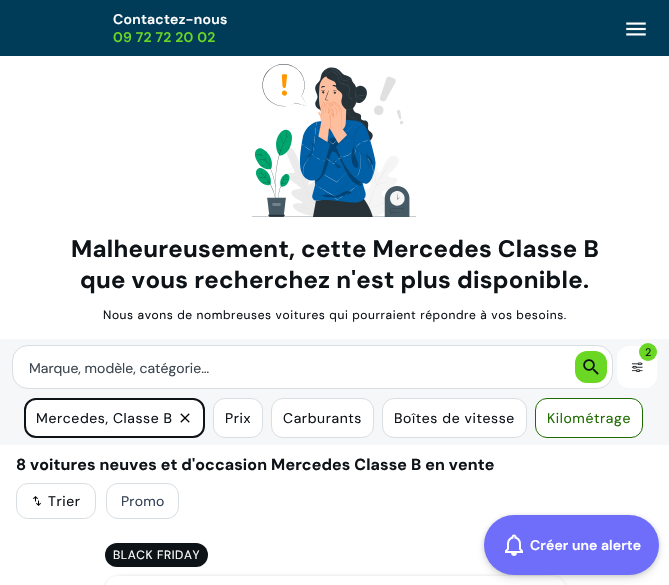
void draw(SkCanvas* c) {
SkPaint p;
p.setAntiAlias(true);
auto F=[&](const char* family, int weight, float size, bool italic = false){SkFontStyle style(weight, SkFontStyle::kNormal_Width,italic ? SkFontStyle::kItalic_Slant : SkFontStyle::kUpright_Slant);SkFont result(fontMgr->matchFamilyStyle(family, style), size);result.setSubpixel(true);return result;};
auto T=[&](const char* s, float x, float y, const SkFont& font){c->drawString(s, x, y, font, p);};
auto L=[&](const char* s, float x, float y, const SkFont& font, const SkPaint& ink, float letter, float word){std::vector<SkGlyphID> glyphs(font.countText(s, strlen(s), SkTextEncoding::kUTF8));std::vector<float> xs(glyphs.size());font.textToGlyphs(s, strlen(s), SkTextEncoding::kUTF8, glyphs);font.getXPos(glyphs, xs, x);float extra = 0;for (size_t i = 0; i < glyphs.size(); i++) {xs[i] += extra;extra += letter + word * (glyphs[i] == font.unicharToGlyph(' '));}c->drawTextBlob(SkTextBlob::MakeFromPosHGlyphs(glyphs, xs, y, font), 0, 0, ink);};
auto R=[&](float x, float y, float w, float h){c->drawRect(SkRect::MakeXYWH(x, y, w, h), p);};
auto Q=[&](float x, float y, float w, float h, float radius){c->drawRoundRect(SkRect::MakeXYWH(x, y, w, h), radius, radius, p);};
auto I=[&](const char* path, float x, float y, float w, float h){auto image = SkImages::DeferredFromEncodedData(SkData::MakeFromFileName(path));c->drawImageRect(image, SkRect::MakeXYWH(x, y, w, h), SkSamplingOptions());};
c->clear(0xffffffff);
p.setColor(0xff003c57);
R(0,0,669,56);
auto f1 = F("DM Sans",600,14);
p.setColor(0xffffffff);
L("Contactez-nous",113,24,f1,p,.25,0);
p.setColor(0xff6ad724);
L("09 72 72 20 02",113,42,f1,p,.25,0);
I("1.png",626,22,20,14);
I("2.png",252,64,165,153);
auto f2 = F("DM Sans",700,24);
p.setColor(0xff0e1318);
L("Malheureusement, cette Mercedes Classe B",71,257,f2,p,.25,0);
L("que vous recherchez n'est plus disponible.",80,288,f2,p,.25,0);
auto f3 = F("DM Sans",400,12);
L("Nous avons de nombreuses voitures qui pourraient répondre à vos besoins.",103,319,f3,p,.6,0);
p.setColor(0xfff6f7f8);
R(0,339,669,106);
p.setColor(0xffffffff);
Q(617,346,40,42,12);
p.setColor(0xff6ad724);
c->drawCircle(648,352,9,p);
auto f4 = F("DM Sans",400,11);
p.setColor(0xff0e1318);
L("2",645,356,f4,p,.6,0);
I("3.png",631,362,12,10);
p.setColor(0xffffffff);
c->drawRoundRect(SkRect::MakeXYWH(12.5,345.5,600,43),15.5,15.5,p);
p.setStroke(true);
p.setStrokeWidth(1);
p.setColor(0xffd9dee2);
c->drawRoundRect(SkRect::MakeXYWH(12.5,345.5,600,43),15.5,15.5,p);
auto f5 = F("DM Sans",400,14);
p.setStroke(false);
p.setColor(0xff3b454e);
T("Marque, modèle, catégorie…",29,373,f5);
p.setColor(0xff6ad724);
Q(575,351,32,32,12);
I("4.png",583,359,16,16);
p.setColor(0xffffffff);
c->drawRoundRect(SkRect::MakeXYWH(25,399,179,38),11,11,p);
p.setStroke(true);
p.setStrokeWidth(2);
p.setColor(0xff0e1318);
c->drawRoundRect(SkRect::MakeXYWH(25,399,179,38),11,11,p);
p.setStroke(false);
L("Mercedes, Classe B",36,423,f5,p,.6,0);
I("5.png",180,413,10,10);
p.setColor(0xffffffff);
c->drawRoundRect(SkRect::MakeXYWH(213.5,398.5,49,39),11.5,11.5,p);
p.setStroke(true);
p.setStrokeWidth(1);
p.setColor(0xffd9dee2);
c->drawRoundRect(SkRect::MakeXYWH(213.5,398.5,49,39),11.5,11.5,p);
p.setStroke(false);
p.setColor(0xff0e1318);
L("Prix",225,423,f5,p,.6,0);
p.setColor(0xffffffff);
c->drawRoundRect(SkRect::MakeXYWH(271.5,398.5,102,39),11.5,11.5,p);
p.setStroke(true);
p.setColor(0xffd9dee2);
c->drawRoundRect(SkRect::MakeXYWH(271.5,398.5,102,39),11.5,11.5,p);
p.setStroke(false);
p.setColor(0xff0e1318);
L("Carburants",283,423,f5,p,.6,0);
p.setColor(0xffffffff);
c->drawRoundRect(SkRect::MakeXYWH(382.5,398.5,144,39),11.5,11.5,p);
p.setStroke(true);
p.setColor(0xffd9dee2);
c->drawRoundRect(SkRect::MakeXYWH(382.5,398.5,144,39),11.5,11.5,p);
p.setStroke(false);
p.setColor(0xff0e1318);
L("Boîtes de vitesse",394,423,f5,p,.6,0);
p.setColor(0xffffffff);
c->drawRoundRect(SkRect::MakeXYWH(535.5,398.5,107,39),11.5,11.5,p);
p.setStroke(true);
p.setColor(0xff1e6b00);
c->drawRoundRect(SkRect::MakeXYWH(535.5,398.5,107,39),11.5,11.5,p);
p.setStroke(false);
L("Kilométrage",547,423,f5,p,.6,0);
auto f6 = F("DM Sans",700,16);
p.setColor(0xff0e1318);
L("8",16,470,f6,p,.25,0);
L("voitures neuves et d'occasion Mercedes Classe B en vente",30,470,f6,p,.12,0);
p.setStroke(true);
p.setColor(0xffd9dee2);
c->drawRoundRect(SkRect::MakeXYWH(16.5,483.5,79,35),11.5,11.5,p);
I("6.png",33,496,8,10);
p.setStroke(false);
p.setColor(0xff0e1318);
L("Trier",48,506,f5,p,.6,0);
p.setStroke(true);
p.setColor(0xffd9dee2);
c->drawRoundRect(SkRect::MakeXYWH(106.5,483.5,72,35),11.5,11.5,p);
p.setStroke(false);
p.setColor(0xff334155);
L("Promo",121,506,f5,p,.25,0);
p.setColor(0x1f252a1d);
p.setMaskFilter(SkMaskFilter::MakeBlur(kNormal_SkBlurStyle, 4));
c->drawRoundRect(SkRect::MakeXYWH(105,580,460,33),16,16,p);
p.setMaskFilter(nullptr);
p.setColor(0x29252a1d);
p.setMaskFilter(SkMaskFilter::MakeBlur(kNormal_SkBlurStyle, 2));
c->drawRoundRect(SkRect::MakeXYWH(105,577,460,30),16,16,p);
p.setMaskFilter(nullptr);
p.setColor(0xffffffff);
Q(105,576,460,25,16);
p.setColor(0x1f252a1d);
p.setMaskFilter(SkMaskFilter::MakeBlur(kNormal_SkBlurStyle, 4));
c->drawRoundRect(SkRect::MakeXYWH(484,519,175,60),30,30,p);
p.setMaskFilter(nullptr);
p.setColor(0x29252a1d);
p.setMaskFilter(SkMaskFilter::MakeBlur(kNormal_SkBlurStyle, 2));
c->drawRoundRect(SkRect::MakeXYWH(484,516,175,60),30,30,p);
p.setMaskFilter(nullptr);
p.setColor(0xff6e6efa);
Q(484,515,175,60,30);
I("7.png",505,534,18,22);
p.setColor(0xffffffff);
L("Créer une alerte",530,550,f1,p,.1,0);
p.setColor(0xff0e1318);
Q(105,543,103,24,12);
p.setColor(0xffffffff);
L("BLACK FRIDAY",113,559,f3,p,.6,0);
}
